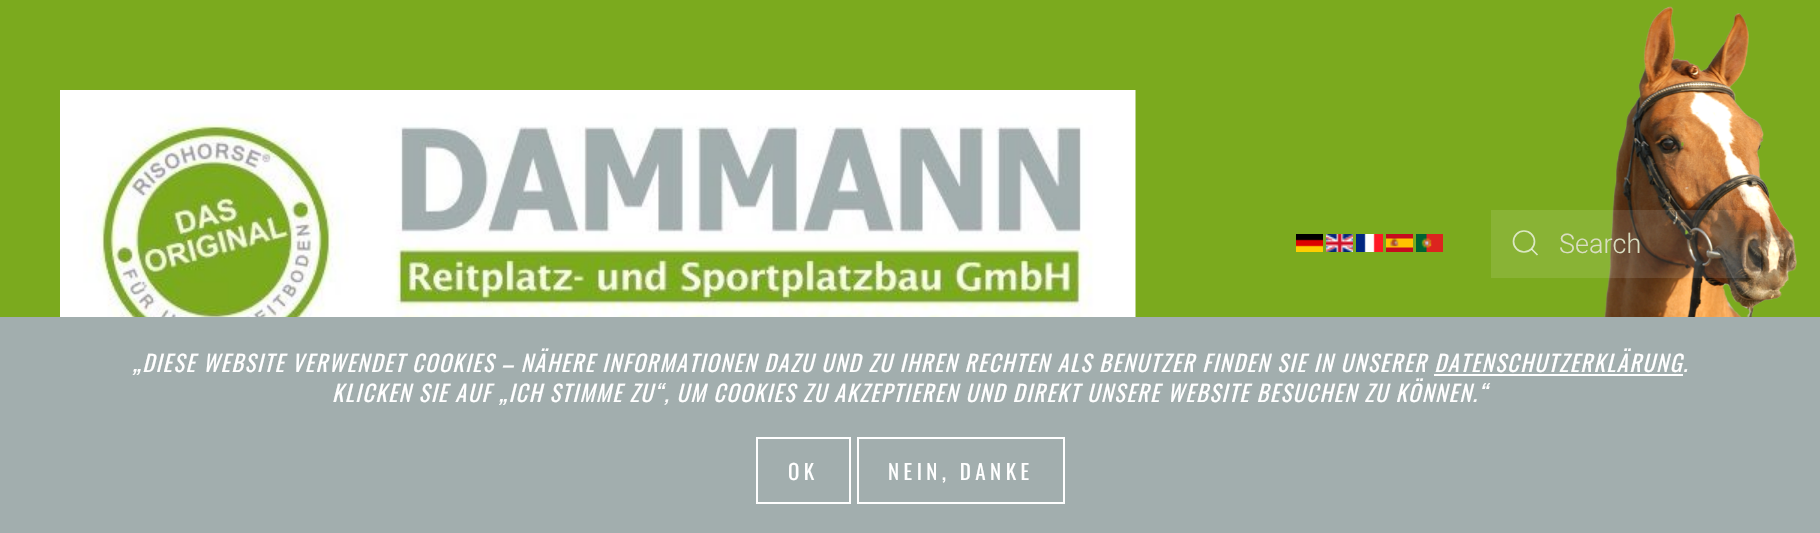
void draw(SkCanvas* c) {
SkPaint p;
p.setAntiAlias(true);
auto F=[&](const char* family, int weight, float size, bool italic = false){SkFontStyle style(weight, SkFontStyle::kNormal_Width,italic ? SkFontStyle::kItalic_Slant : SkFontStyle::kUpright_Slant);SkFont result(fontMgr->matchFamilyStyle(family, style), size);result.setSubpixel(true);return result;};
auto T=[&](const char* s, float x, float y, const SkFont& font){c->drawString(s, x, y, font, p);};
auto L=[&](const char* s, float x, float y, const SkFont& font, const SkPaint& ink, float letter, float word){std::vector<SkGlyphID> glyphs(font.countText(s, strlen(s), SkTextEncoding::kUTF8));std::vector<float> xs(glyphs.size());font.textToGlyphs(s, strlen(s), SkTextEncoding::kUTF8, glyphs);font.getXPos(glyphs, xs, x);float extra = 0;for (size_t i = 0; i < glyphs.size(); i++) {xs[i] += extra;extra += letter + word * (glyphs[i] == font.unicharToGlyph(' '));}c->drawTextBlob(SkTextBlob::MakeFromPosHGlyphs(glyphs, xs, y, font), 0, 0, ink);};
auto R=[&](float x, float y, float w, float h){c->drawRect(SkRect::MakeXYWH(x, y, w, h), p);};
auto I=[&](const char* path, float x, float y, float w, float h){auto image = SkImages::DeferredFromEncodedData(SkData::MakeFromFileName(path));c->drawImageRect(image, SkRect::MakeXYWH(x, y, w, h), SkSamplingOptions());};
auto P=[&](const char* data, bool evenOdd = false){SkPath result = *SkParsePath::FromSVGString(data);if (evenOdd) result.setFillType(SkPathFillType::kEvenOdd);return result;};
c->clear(0xff7baa1e);
I("1.png",60,90,1076,227);
I("2.png",1296,234,27,18);
I("3.png",1326,234,27,18);
I("4.png",1356,234,27,18);
I("5.png",1386,234,27,18);
I("6.png",1416,234,27,18);
I("7.png",1604,6,193,311);
p.setColor(0x1affffff);
R(1491,210,270,68);
p.setStroke(true);
p.setStrokeWidth(1.7);
p.setColor(0xffdbe8c2);
c->drawCircle(1524,241.5,10.5,p);
p.setColor(0xb3ffffff);
c->drawPath(P("M1531.5 249l6 6z"),p);
auto f1 = F("Roboto",300,27);
p.setStroke(false);
p.setColor(0xffd9dec2);
T("Search",1559,253,f1);
p.setColor(0xffa2aeae);
R(0,317,1820,216);
auto f2 = F("Oswald",400,22.5,true);
p.setColor(0xffffffff);
L("„DIESE WEBSITE VERWENDET COOKIES – NÄHERE INFORMATIONEN DAZU UND ZU IHREN RECHTEN ALS BENUTZER FINDEN SIE IN UNSERER DATENSCHUTZERKLÄRUNG.",132,372,f2,p,1.5,0);
R(1434,374,249,2);
L("KLICKEN SIE AUF „ICH STIMME ZU“, UM COOKIES ZU AKZEPTIEREN UND DIREKT UNSERE WEBSITE BESUCHEN ZU KÖNNEN.“",332,402,f2,p,1.5,0);
p.setStroke(true);
p.setStrokeWidth(2);
c->drawRect(SkRect::MakeXYWH(757,438,93,65),p);
auto f3 = F("Oswald",400,21);
p.setStroke(false);
L("OK",788,480,f3,p,4.5,0);
p.setStroke(true);
c->drawRect(SkRect::MakeXYWH(858,438,206,65),p);
p.setStroke(false);
L("NEIN, DANKE",888,480,f3,p,4.5,0);
}
